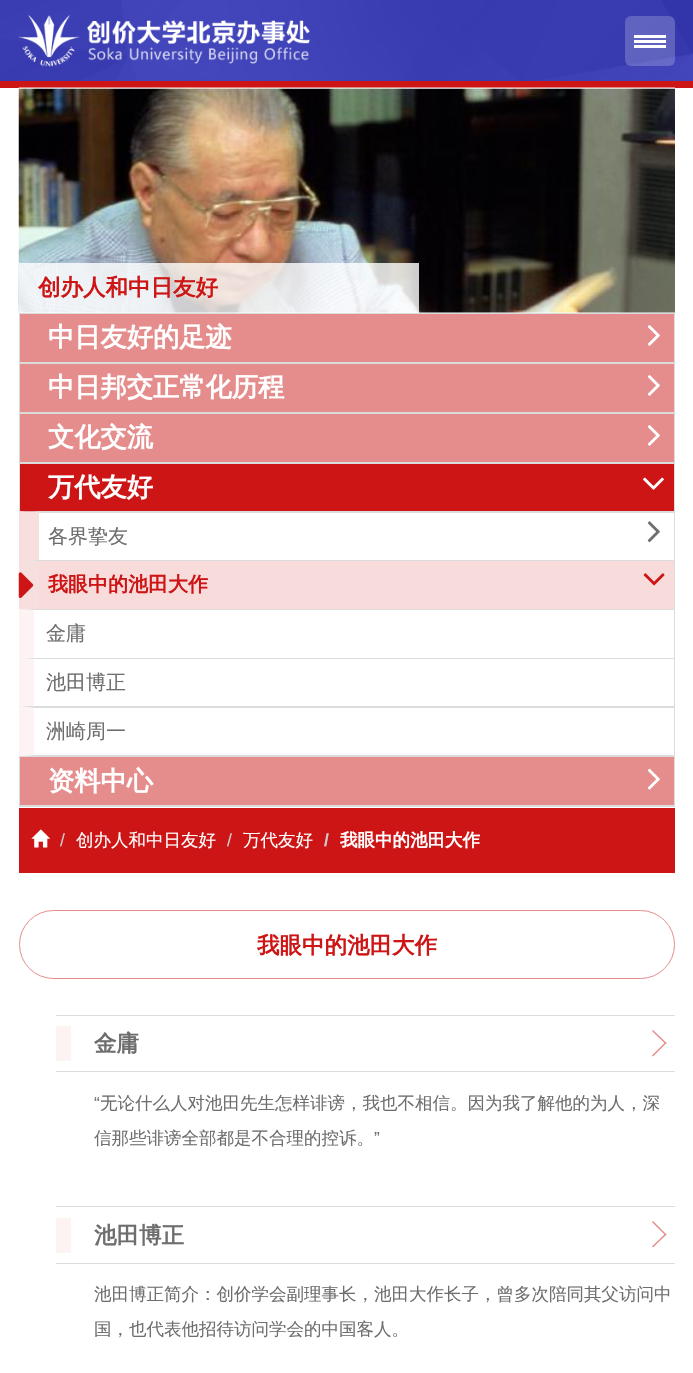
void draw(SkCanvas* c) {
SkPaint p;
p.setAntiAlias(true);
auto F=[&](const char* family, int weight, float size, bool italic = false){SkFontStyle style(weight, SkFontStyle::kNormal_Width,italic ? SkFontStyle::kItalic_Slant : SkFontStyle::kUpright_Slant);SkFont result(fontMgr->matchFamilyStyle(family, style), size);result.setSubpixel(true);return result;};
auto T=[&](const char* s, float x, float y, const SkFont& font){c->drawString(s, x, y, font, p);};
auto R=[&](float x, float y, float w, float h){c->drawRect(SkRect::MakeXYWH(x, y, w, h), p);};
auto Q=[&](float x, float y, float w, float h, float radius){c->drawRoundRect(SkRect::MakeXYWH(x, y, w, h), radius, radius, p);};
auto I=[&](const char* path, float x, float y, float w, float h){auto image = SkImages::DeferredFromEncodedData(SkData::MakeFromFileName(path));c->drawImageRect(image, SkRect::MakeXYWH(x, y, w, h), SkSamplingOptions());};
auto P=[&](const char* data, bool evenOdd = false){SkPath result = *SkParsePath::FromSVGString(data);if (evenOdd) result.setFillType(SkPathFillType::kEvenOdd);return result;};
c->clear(0xffffffff);
I("1.png",0,0,693,81);
p.setColor(0xffce1515);
R(0,81,693,7);
I("2.png",18,15,292,52);
p.setColor(0x33ffffff);
Q(625,16,50,50,6);
p.setColor(0xffffffff);
R(634,35,32,3);
R(634,40,32,3);
R(634,45,32,3);
I("3.png",18,87,657,226);
p.setColor(0xccffffff);
R(19,263,400,50);
auto f1 = F("WenQuanYi Zen Hei",700,22.5);
p.setColor(0xffce1515);
T("创办人和中日友好",38,295,f1);
p.setColor(0xffe58c8c);
c->drawRect(SkRect::MakeXYWH(19.5,313.5,655,49),p);
p.setStroke(true);
p.setStrokeWidth(1);
p.setColor(0xffdcdcdc);
c->drawRect(SkRect::MakeXYWH(19.5,313.5,655,49),p);
auto f2 = F("WenQuanYi Zen Hei",700,26.25);
p.setStroke(false);
p.setColor(0xffffffff);
T("中日友好的足迹",48,346,f2);
I("4.png",647,325,13,21);
p.setColor(0xffe58c8c);
c->drawRect(SkRect::MakeXYWH(19.5,363.5,655,49),p);
p.setStroke(true);
p.setColor(0xffdcdcdc);
c->drawRect(SkRect::MakeXYWH(19.5,363.5,655,49),p);
p.setStroke(false);
p.setColor(0xffffffff);
T("中日邦交正常化历程",48,396,f2);
I("4.png",647,375,13,21);
p.setColor(0xffe58c8c);
c->drawRect(SkRect::MakeXYWH(19.5,413.5,655,49),p);
p.setStroke(true);
p.setColor(0xffdcdcdc);
c->drawRect(SkRect::MakeXYWH(19.5,413.5,655,49),p);
p.setStroke(false);
p.setColor(0xffffffff);
T("文化交流",48,446,f2);
I("4.png",647,425,13,21);
p.setColor(0xffce1515);
c->drawRect(SkRect::MakeXYWH(19.5,463.5,655,49),p);
p.setStroke(true);
p.setColor(0xffdcdcdc);
c->drawRect(SkRect::MakeXYWH(19.5,463.5,655,49),p);
p.setStroke(false);
p.setColor(0xffffffff);
T("万代友好",48,496,f2);
I("5.png",643,477,21,13);
p.setColor(0xffdcdcdc);
c->drawPath(P("M19 511h656l-1 1h-635z"),p);
R(674,511,1,50);
p.setColor(0xfff7dfdf);
c->drawPath(P("M19 561v-50l20 1v48z"),p);
auto f3 = F("WenQuanYi Zen Hei",500,20);
p.setColor(0xff6e6e6e);
T("各界挚友",48,543,f3);
I("6.png",647,521,13,22);
p.setColor(0xfff8dcdc);
R(39,561,635,48);
p.setColor(0xffdcdcdc);
c->drawPath(P("M19 560h656l-1 1h-635z"),p);
R(674,560,1,50);
p.setColor(0xfff7dfdf);
c->drawPath(P("M19 610v-50l20 1v48z"),p);
I("7.png",18,572,16,26);
auto f4 = F("WenQuanYi Zen Hei",700,20);
p.setColor(0xffce1515);
T("我眼中的池田大作",48,591,f4);
I("8.png",643,573,22,13);
p.setColor(0xffdcdcdc);
c->drawPath(P("M19 609h656l-1 1h-640z"),p);
R(674,609,1,50);
p.setColor(0xfffdf3f3);
c->drawPath(P("M19 659v-50l15 1v48z"),p);
p.setColor(0xff6e6e6e);
T("金庸",46,640,f3);
p.setColor(0xffdcdcdc);
c->drawPath(P("M19 658h656l-1 1h-640z"),p);
R(674,658,1,50);
p.setColor(0xfffdf3f3);
c->drawPath(P("M19 708v-50l15 1v47z"),p);
p.setColor(0xff6e6e6e);
T("池田博正",46,689,f3);
p.setColor(0xffdcdcdc);
c->drawPath(P("M19 706h656l-1 2h-640z"),p);
R(674,706,1,50);
c->drawPath(P("M675 756h-656l15-1h640z"),p);
p.setColor(0xfffdf3f3);
c->drawPath(P("M19 756v-50l15 2v47z"),p);
p.setColor(0xff6e6e6e);
T("洲崎周一",46,738,f3);
p.setColor(0xffe58c8c);
c->drawRect(SkRect::MakeXYWH(19.5,756.5,655,49),p);
p.setStroke(true);
p.setColor(0xffdcdcdc);
c->drawRect(SkRect::MakeXYWH(19.5,756.5,655,49),p);
p.setStroke(false);
p.setColor(0xffffffff);
T("资料中心",48,790,f2);
I("9.png",647,768,13,22);
p.setColor(0xffdcdcdc);
R(19,806,656,1);
p.setColor(0xffce1515);
R(19,808,656,65);
I("10.png",31,829,19,19);
auto f5 = F("Liberation Sans",400,17.5);
p.setColor(0xffcccccc);
T("/",60,846,f5);
auto f6 = F("WenQuanYi Zen Hei",500,17.5);
p.setColor(0xffffffff);
T("创办人和中日友好",76,846,f6);
p.setColor(0xffcccccc);
T("/",227,846,f5);
p.setColor(0xffffffff);
T("万代友好",243,846,f6);
auto f7 = F("Liberation Sans",700,17.5);
p.setColor(0xffcccccc);
T("/",324,846,f7);
auto f8 = F("WenQuanYi Zen Hei",700,17.5);
p.setColor(0xffffffff);
T("我眼中的池田大作",340,846,f8);
p.setStroke(true);
p.setColor(0xffe58c8c);
c->drawRoundRect(SkRect::MakeXYWH(19.5,910.5,655,68),34,34,p);
p.setStroke(false);
p.setColor(0xffce1515);
T("我眼中的池田大作",257,953,f1);
p.setColor(0xffdcdcdc);
R(56,1015,619,1);
R(56,1071,619,1);
p.setColor(0xfffdf3f3);
R(56,1026,15,35);
p.setColor(0xff6e6e6e);
T("金庸",94,1051,f1);
p.setColor(0xffe68a8a);
c->drawPath(P("M653 1030l13.5 13l-1 1l-13.5-13z"),p);
c->drawPath(P("M665.5 1042l1 1l-13.5 13.5l-1-1z"),p);
p.setColor(0xff6e6e6e);
T("“",94,1109,f5);
T("无论什么人对池田先生怎样诽谤，我也不相信。因为我了解他的为人，深",100,1109,f6);
T("信那些诽谤全部都是不合理的控诉。",94,1144,f6);
T("”",374,1144,f5);
p.setColor(0xffdcdcdc);
R(56,1206,619,1);
R(56,1263,619,1);
p.setColor(0xfffdf3f3);
R(56,1218,15,35);
p.setColor(0xff6e6e6e);
T("池田博正",94,1243,f1);
p.setColor(0xffe68a8a);
c->drawPath(P("M653 1221l13.5 13.5l-1 1l-13.5-13.5z"),p);
c->drawPath(P("M665.5 1233.5l1 1l-13.5 13l-1-1z"),p);
p.setColor(0xff6e6e6e);
T("池田博正简介：创价学会副理事长，池田大作长子，曾多次陪同其父访问中",94,1300,f6);
T("国，也代表他招待访问学会的中国客人。",94,1335,f6);
}
